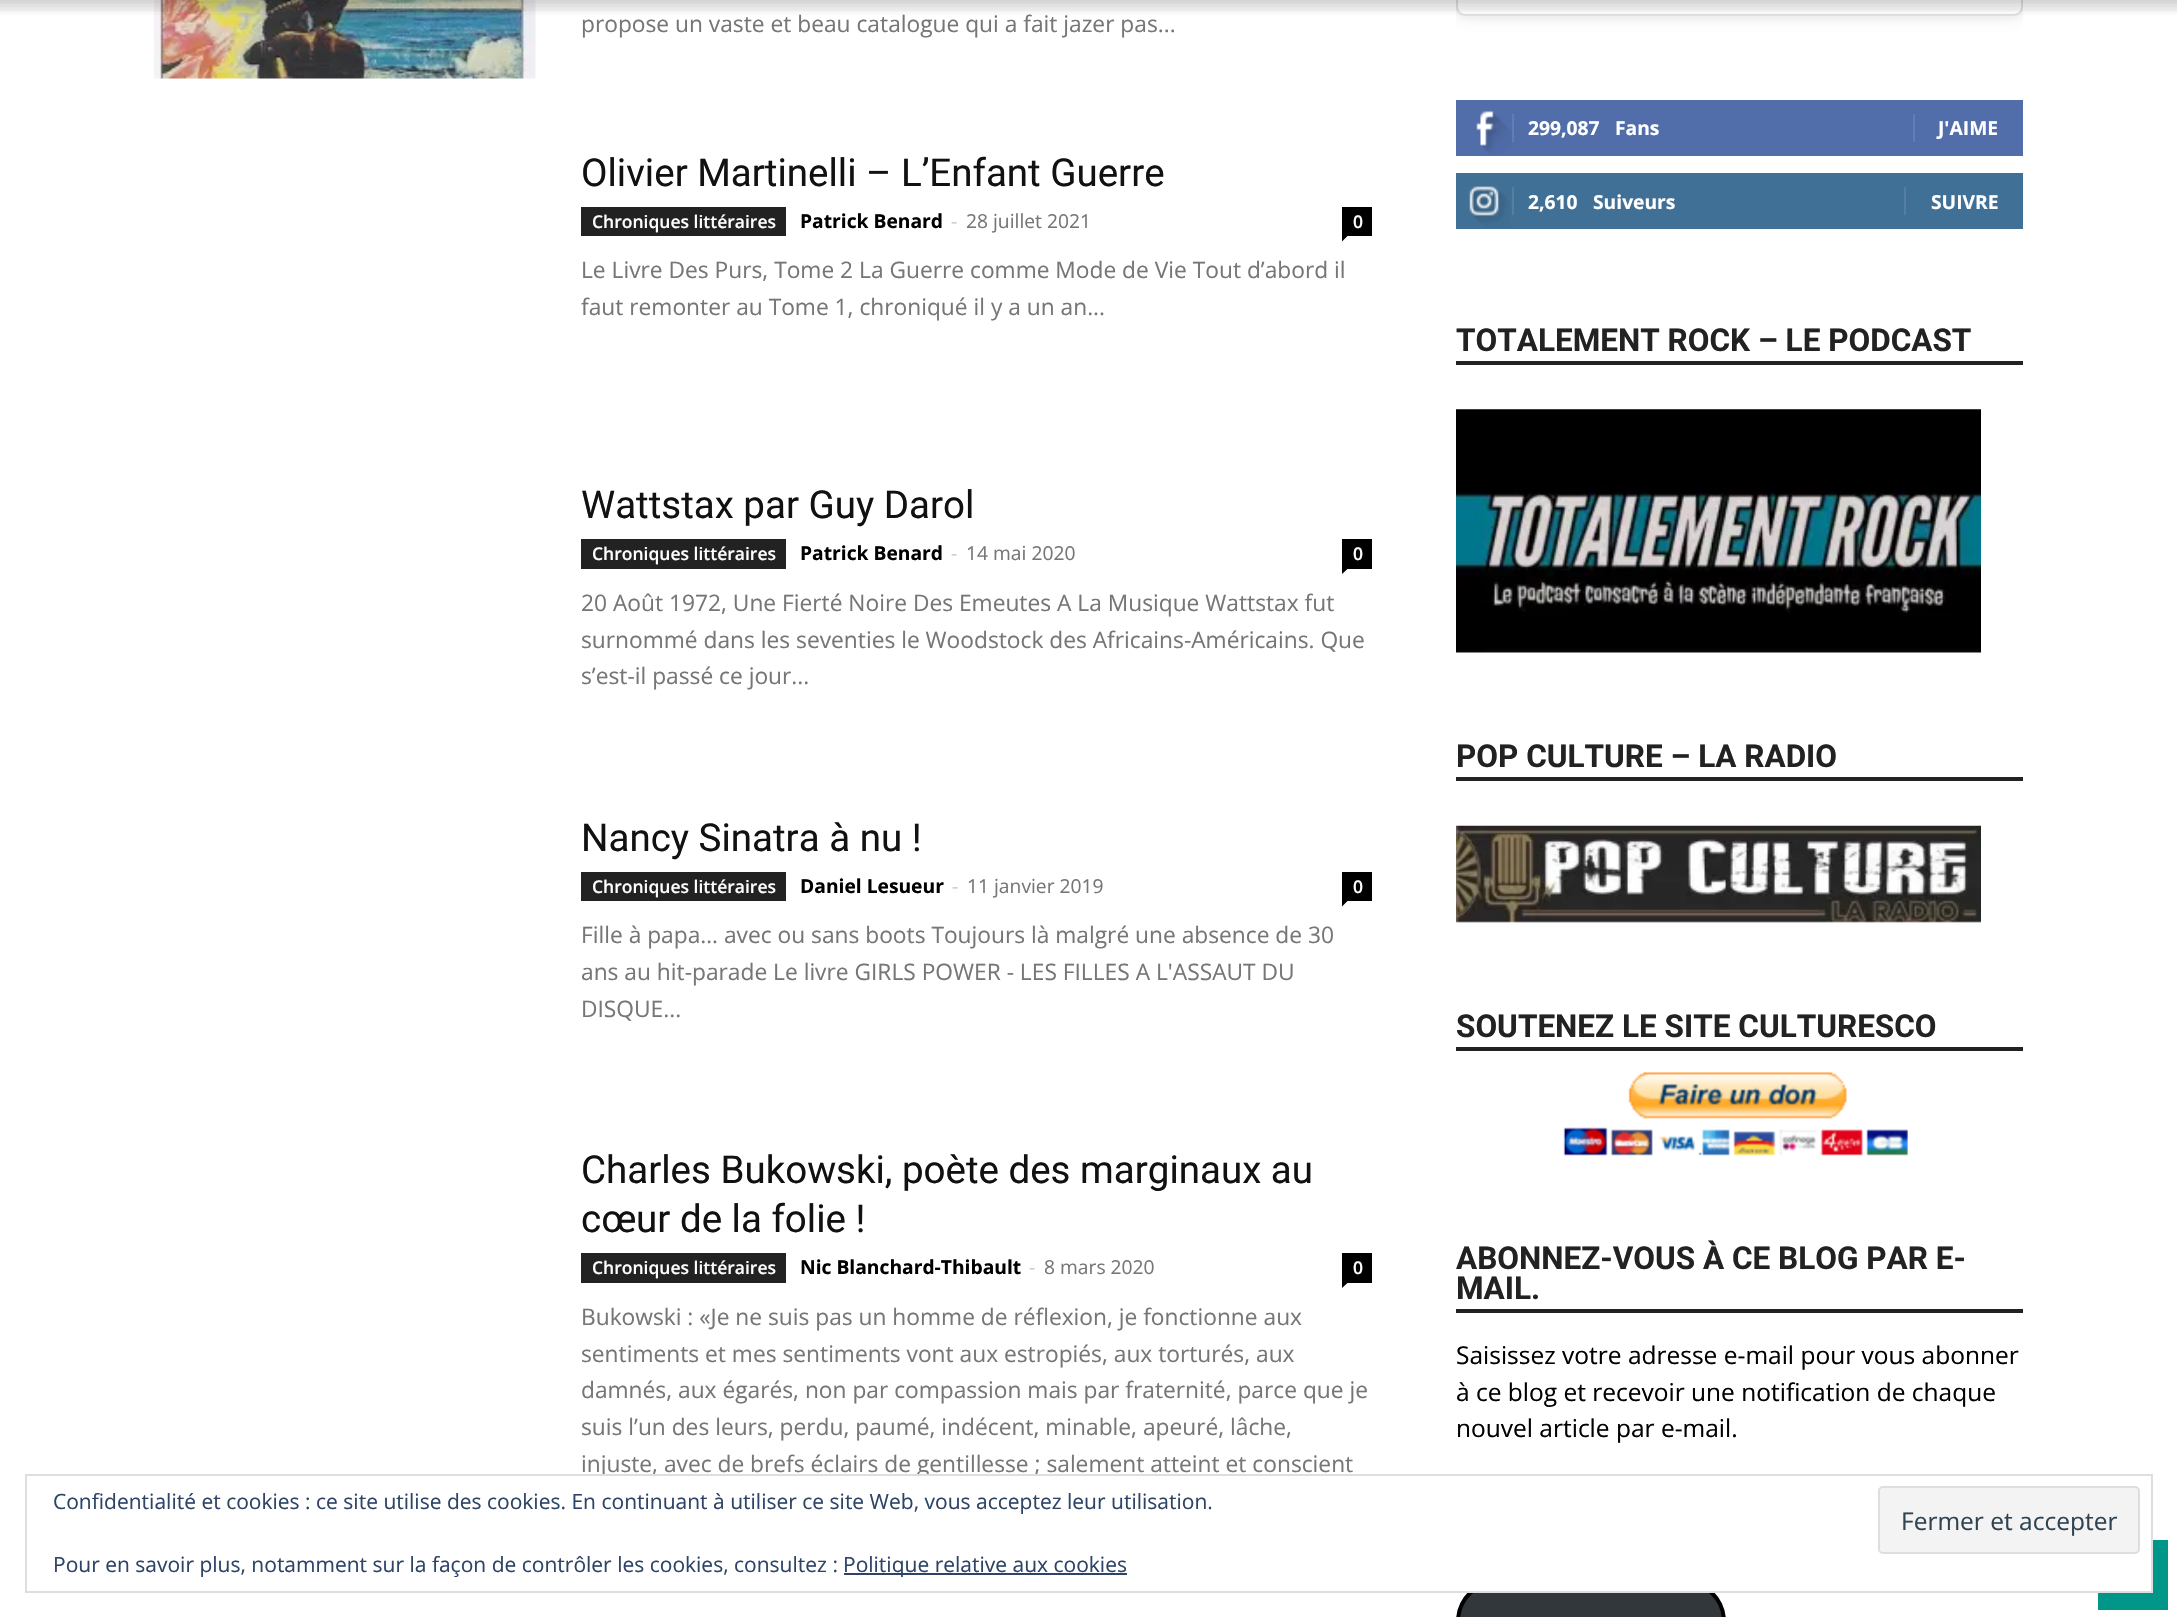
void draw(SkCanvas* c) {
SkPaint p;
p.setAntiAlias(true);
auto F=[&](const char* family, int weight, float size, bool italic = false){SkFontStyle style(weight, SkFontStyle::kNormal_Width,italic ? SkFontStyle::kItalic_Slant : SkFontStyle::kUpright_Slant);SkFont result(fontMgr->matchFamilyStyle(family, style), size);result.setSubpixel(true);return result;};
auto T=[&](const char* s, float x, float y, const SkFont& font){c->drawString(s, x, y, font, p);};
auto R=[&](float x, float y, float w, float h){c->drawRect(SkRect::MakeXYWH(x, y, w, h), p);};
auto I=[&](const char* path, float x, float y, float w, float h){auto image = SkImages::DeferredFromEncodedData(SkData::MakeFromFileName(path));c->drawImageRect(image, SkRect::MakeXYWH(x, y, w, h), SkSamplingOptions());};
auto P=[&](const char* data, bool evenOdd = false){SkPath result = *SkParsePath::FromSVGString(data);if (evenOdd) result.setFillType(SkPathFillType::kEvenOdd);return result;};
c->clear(0xffffffff);
I("3.png",154,0,382,79);
auto f1 = F("Open Sans",400,22.75);
p.setColor(0xff767676);
T("propose un vaste et beau catalogue qui a fait jazer pas...",581,32,f1);
c->save();
c->clipRect(SkRect::MakeXYWH(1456,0,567,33));
c->clipPath(P("M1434 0h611v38h-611zm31-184h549c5 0 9 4 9 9v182c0 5-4 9-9 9h-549c-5 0-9-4-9-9v-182c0-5 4-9 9-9z",true),true);
p.setColor(0xffdddddd);
p.setMaskFilter(SkMaskFilter::MakeBlur(kNormal_SkBlurStyle, 7));
c->drawRoundRect(SkRect::MakeXYWH(1456,-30,567,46),9,9,p);
p.setMaskFilter(nullptr);
c->restore();
p.setStroke(true);
p.setStrokeWidth(2);
p.setColor(0x1f000000);
c->drawRoundRect(SkRect::MakeXYWH(1457,-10,565,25),8,8,p);
I("1.png",0,0,2177,15);
I("2.png",0,0,2177,12);
auto f2 = F("Roboto",400,38.5);
p.setStroke(false);
p.setColor(0xff111111);
T("Olivier Martinelli – L’Enfant Guerre",581,186,f2);
p.setColor(0xff222222);
R(581,207,205,29);
auto f3 = F("Open Sans",600,17.5);
p.setColor(0xffffffff);
T("Chroniques littéraires",592,228,f3);
auto f4 = F("Open Sans",700,19.25);
p.setColor(0xff000000);
T("Patrick Benard",800,228,f4);
auto f5 = F("Open Sans",400,19.25);
p.setColor(0xffcccccc);
T("-",951,228,f5);
p.setColor(0xff767676);
T("28 juillet 2021",966,228,f5);
p.setColor(0xff000000);
R(1342,207,30,29);
p.setColor(0xffffffff);
T("0",1353,228,f3);
p.setColor(0xff000000);
c->drawPath(P("M1342 236h5.5l-5.5 5.5z"),p);
p.setColor(0xff767676);
T("Le Livre Des Purs, Tome 2 La Guerre comme Mode de Vie Tout d’abord il",581,278,f1);
T("faut remonter au Tome 1, chroniqué il y a un an...",581,315,f1);
p.setColor(0xff111111);
T("Wattstax par Guy Darol",581,518,f2);
p.setColor(0xff222222);
R(581,539,205,30);
p.setColor(0xffffffff);
T("Chroniques littéraires",592,560,f3);
p.setColor(0xff000000);
T("Patrick Benard",800,560,f4);
p.setColor(0xffcccccc);
T("-",951,560,f5);
p.setColor(0xff767676);
T("14 mai 2020",966,560,f5);
p.setColor(0xff000000);
R(1342,539,30,30);
p.setColor(0xffffffff);
T("0",1353,560,f3);
p.setColor(0xff000000);
c->drawPath(P("M1342 569h5.5l-5.5 5z"),p);
p.setColor(0xff767676);
T("20 Août 1972, Une Fierté Noire Des Emeutes A La Musique Wattstax fut",581,611,f1);
T("surnommé dans les seventies le Woodstock des Africains-Américains. Que",581,648,f1);
T("s’est-il passé ce jour...",581,684,f1);
p.setColor(0xff111111);
T("Nancy Sinatra à nu !",581,851,f2);
p.setColor(0xff222222);
R(581,872,205,29);
p.setColor(0xffffffff);
T("Chroniques littéraires",592,893,f3);
p.setColor(0xff000000);
T("Daniel Lesueur",800,893,f4);
p.setColor(0xffcccccc);
T("-",952,893,f5);
p.setColor(0xff767676);
T("11 janvier 2019",967,893,f5);
p.setColor(0xff000000);
R(1342,872,30,29);
p.setColor(0xffffffff);
T("0",1353,893,f3);
p.setColor(0xff000000);
c->drawPath(P("M1342 901h5.5l-5.5 5.5z"),p);
p.setColor(0xff767676);
T("Fille à papa… avec ou sans boots Toujours là malgré une absence de 30",581,943,f1);
T("ans au hit-parade Le livre GIRLS POWER - LES FILLES A L'ASSAUT DU",581,980,f1);
T("DISQUE...",581,1017,f1);
p.setColor(0xff111111);
T("Charles Bukowski, poète des marginaux au",581,1183,f2);
T("cœur de la folie !",581,1232,f2);
p.setColor(0xff222222);
R(581,1253,205,30);
p.setColor(0xffffffff);
T("Chroniques littéraires",592,1274,f3);
p.setColor(0xff000000);
T("Nic Blanchard-Thibault",800,1274,f4);
p.setColor(0xffcccccc);
T("-",1029,1274,f5);
p.setColor(0xff767676);
T("8 mars 2020",1044,1274,f5);
p.setColor(0xff000000);
R(1342,1253,30,30);
p.setColor(0xffffffff);
T("0",1353,1274,f3);
p.setColor(0xff000000);
c->drawPath(P("M1342 1283h5.5l-5.5 5z"),p);
p.setColor(0xff767676);
T("Bukowski : «Je ne suis pas un homme de réflexion, je fonctionne aux",581,1325,f1);
T("sentiments et mes sentiments vont aux estropiés, aux torturés, aux",581,1362,f1);
T("damnés, aux égarés, non par compassion mais par fraternité, parce que je",581,1398,f1);
T("suis l’un des leurs, perdu, paumé, indécent, minable, apeuré, lâche,",581,1435,f1);
T("injuste, avec de brefs éclairs de gentillesse ; salement atteint et conscient",581,1472,f1);
p.setColor(0xff516eab);
R(1456,100,567,56);
I("4.png",1476,110,36,45);
p.setColor(0xff627db3);
R(1512,114,2,28);
p.setColor(0xffffffff);
T("299,087",1528,135,f4);
T("Fans",1615,135,f4);
p.setColor(0xff627db3);
R(1913,114,2,28);
p.setColor(0xffffffff);
T("J'AIME",1938,135,f4);
p.setColor(0xff417096);
R(1456,173,567,56);
I("5.png",1469,186,41,42);
p.setColor(0xff547ea1);
R(1512,187,2,28);
p.setColor(0xffffffff);
T("2,610",1528,209,f4);
T("Suiveurs",1593,209,f4);
p.setColor(0xff547ea1);
R(1904,187,2,28);
p.setColor(0xffffffff);
T("SUIVRE",1931,209,f4);
p.setColor(0xff222222);
R(1456,361,567,4);
auto f6 = F("Roboto",700,31.5);
T("TOTALEMENT ROCK – LE PODCAST",1456,351,f6);
I("6.png",1456,409,525,244);
R(1456,777,567,4);
T("POP CULTURE – LA RADIO",1456,767,f6);
I("7.png",1456,825,525,98);
R(1456,1047,567,4);
T("SOUTENEZ LE SITE CULTURESCO",1456,1037,f6);
I("8.png",1563,1072,345,84);
R(1456,1309,567,4);
T("ABONNEZ-VOUS À CE BLOG PAR E-",1456,1269,f6);
T("MAIL.",1456,1299,f6);
auto f7 = F("Open Sans",400,24.5);
p.setColor(0xff000000);
T("Saisissez votre adresse e-mail pour vous abonner",1456,1364,f7);
T("à ce blog et recevoir une notification de chaque",1456,1401,f7);
T("nouvel article par e-mail.",1456,1437,f7);
p.setColor(0xff32373c);
c->drawRoundRect(SkRect::MakeXYWH(1458,1581,266,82),41.5,41.5,p);
p.setStroke(true);
p.setStrokeWidth(4);
p.setColor(0xff000000);
c->drawRoundRect(SkRect::MakeXYWH(1458,1581,266,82),41.5,41.5,p);
p.setStroke(false);
p.setColor(0xff009688);
R(2098,1540,70,70);
p.setColor(0xffffffff);
R(599,1476,1552,115);
p.setStroke(true);
p.setStrokeWidth(2);
p.setColor(0xffdedede);
c->drawRect(SkRect::MakeXYWH(26,1475,2126,117),p);
auto f8 = F("Open Sans",400,21);
p.setStroke(false);
p.setColor(0xff2e4467);
T("Confidentialité et cookies : ce site utilise des cookies. En continuant à utiliser ce site Web, vous acceptez leur utilisation.",53,1509,f8);
p.setColor(0xfff3f3f3);
c->drawRoundRect(SkRect::MakeXYWH(1879,1487,260,66),4,4,p);
p.setStroke(true);
p.setColor(0xffdedede);
c->drawRoundRect(SkRect::MakeXYWH(1879,1487,260,66),4,4,p);
p.setStroke(false);
p.setColor(0xff2e4453);
T("Fermer et accepter",1901,1530,f7);
p.setColor(0xff2e4467);
T("Pour en savoir plus, notamment sur la façon de contrôler les cookies, consultez :",53,1572,f8);
R(844,1573,283,2);
T("Politique relative aux cookies",843,1572,f8);
}
